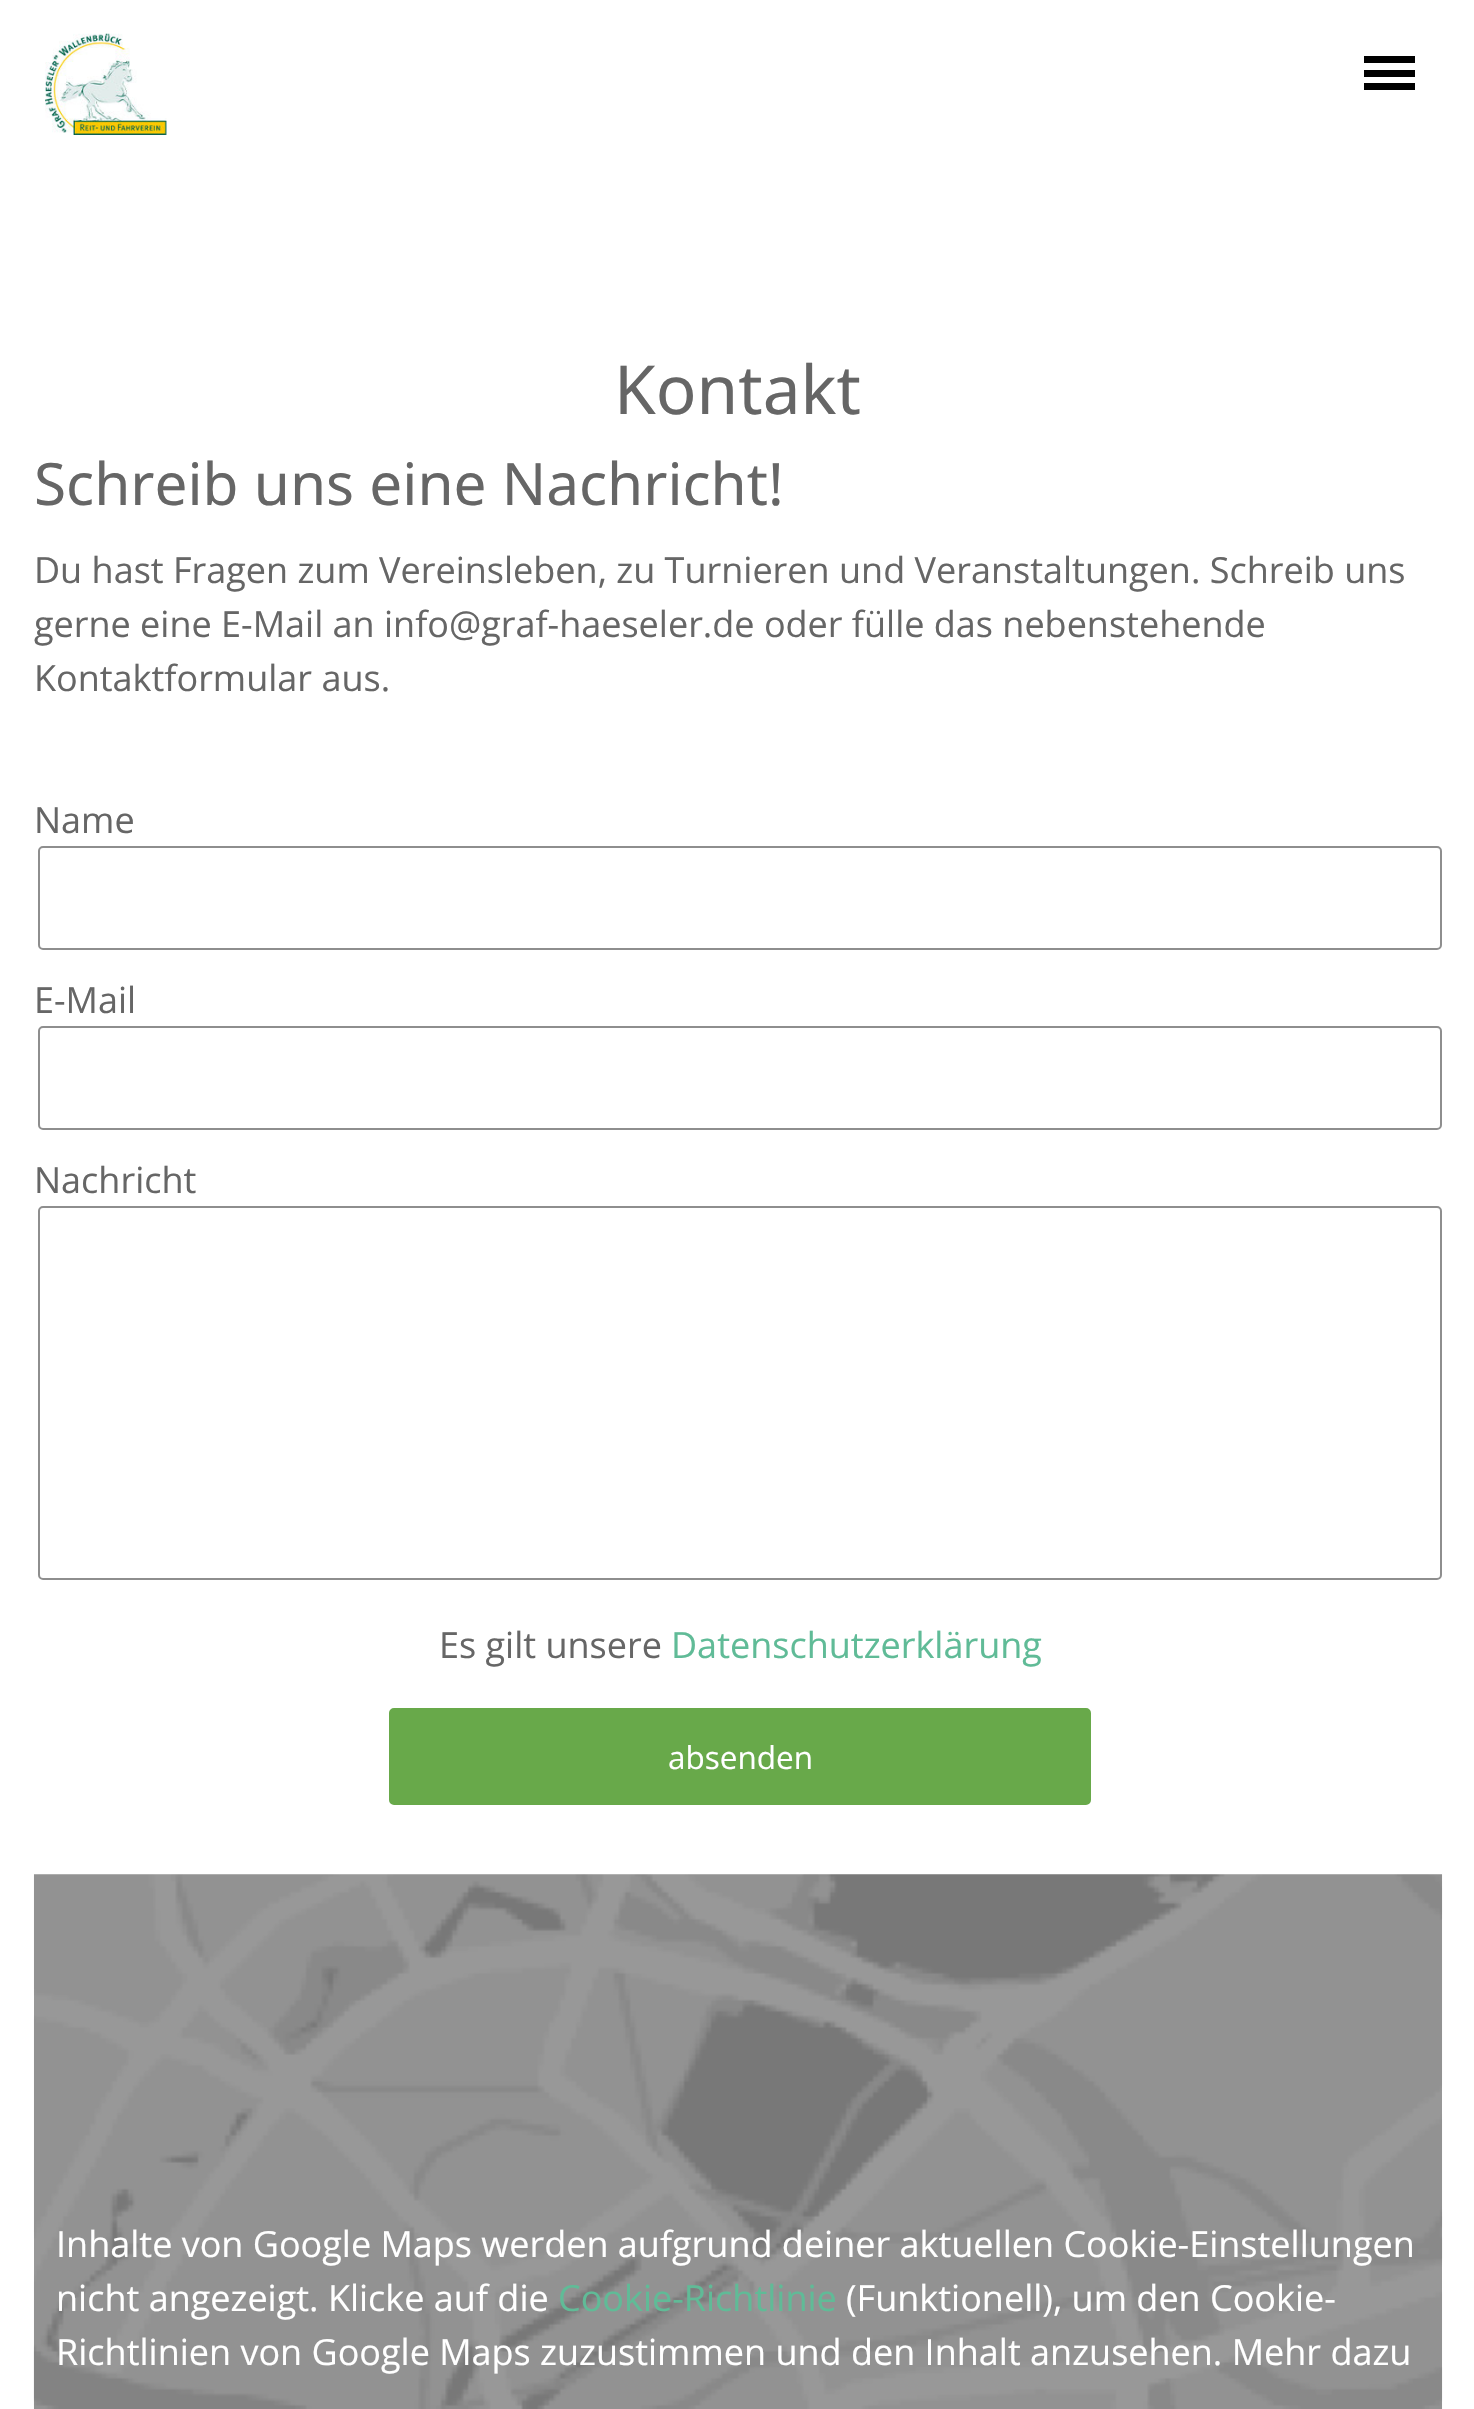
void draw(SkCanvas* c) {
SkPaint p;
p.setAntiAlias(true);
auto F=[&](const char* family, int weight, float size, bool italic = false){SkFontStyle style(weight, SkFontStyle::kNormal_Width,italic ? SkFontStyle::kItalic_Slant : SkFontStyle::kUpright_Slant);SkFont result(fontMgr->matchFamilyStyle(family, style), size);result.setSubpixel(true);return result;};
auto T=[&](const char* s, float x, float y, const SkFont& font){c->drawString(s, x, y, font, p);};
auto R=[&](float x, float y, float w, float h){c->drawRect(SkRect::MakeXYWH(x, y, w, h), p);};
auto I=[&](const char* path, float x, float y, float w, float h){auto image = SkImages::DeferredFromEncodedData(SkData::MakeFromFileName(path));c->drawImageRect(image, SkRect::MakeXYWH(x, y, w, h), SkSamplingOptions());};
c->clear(0xffffffff);
I("1.png",45,33,122,102);
p.setColor(0xff000000);
R(1364,70,51,7);
R(1364,56,51,7);
R(1364,83,51,7);
auto f1 = F("Noto Sans",400,67.5);
p.setColor(0xff666666);
T("Kontakt",614,414,f1);
auto f2 = F("Noto Sans",400,58.5);
T("Schreib uns eine Nachricht!",34,505,f2);
auto f3 = F("Open Sans",400,36);
T("Du hast Fragen zum Vereinsleben, zu Turnieren und Veranstaltungen. Schreib uns",34,583,f3);
T("gerne eine E-Mail an info@graf-haeseler.de oder fülle das nebenstehende",34,637,f3);
T("Kontaktformular aus.",34,691,f3);
T("Name",34,833,f3);
p.setStroke(true);
p.setStrokeWidth(2);
p.setColor(0xff8e8e8e);
c->drawRoundRect(SkRect::MakeXYWH(39,847,1402,102),4,4,p);
p.setStroke(false);
p.setColor(0xff666666);
T("E-Mail",34,1013,f3);
p.setStroke(true);
p.setColor(0xff8e8e8e);
c->drawRoundRect(SkRect::MakeXYWH(39,1027,1402,102),4,4,p);
p.setStroke(false);
p.setColor(0xff666666);
T("Nachricht",34,1193,f3);
p.setStroke(true);
p.setColor(0xff8e8e8e);
c->drawRoundRect(SkRect::MakeXYWH(39,1207,1402,372),4,4,p);
p.setStroke(false);
p.setColor(0xff666666);
T("Es gilt unsere",439,1658,f3);
p.setColor(0xff60bb97);
T("Datenschutzerklärung",671,1658,f3);
p.setColor(0xff68a94a);
c->drawRoundRect(SkRect::MakeXYWH(390,1709,700,95),4,4,p);
p.setStroke(true);
c->drawRoundRect(SkRect::MakeXYWH(390,1709,700,95),4,4,p);
auto f4 = F("Open Sans",400,31.5);
p.setStroke(false);
p.setColor(0xffffffff);
T("absenden",668,1769,f4);
I("2.png",33,1874,1410,535);
T("Inhalte von Google Maps werden aufgrund deiner aktuellen Cookie-Einstellungen",56,2257,f3);
T("nicht angezeigt. Klicke auf die",56,2311,f3);
p.setColor(0xff60bb97);
T("Cookie-Richtlinie",558,2311,f3);
p.setColor(0xffffffff);
T("(Funktionell), um den Cookie-",846,2311,f3);
T("Richtlinien von Google Maps zuzustimmen und den Inhalt anzusehen. Mehr dazu",56,2365,f3);
}
